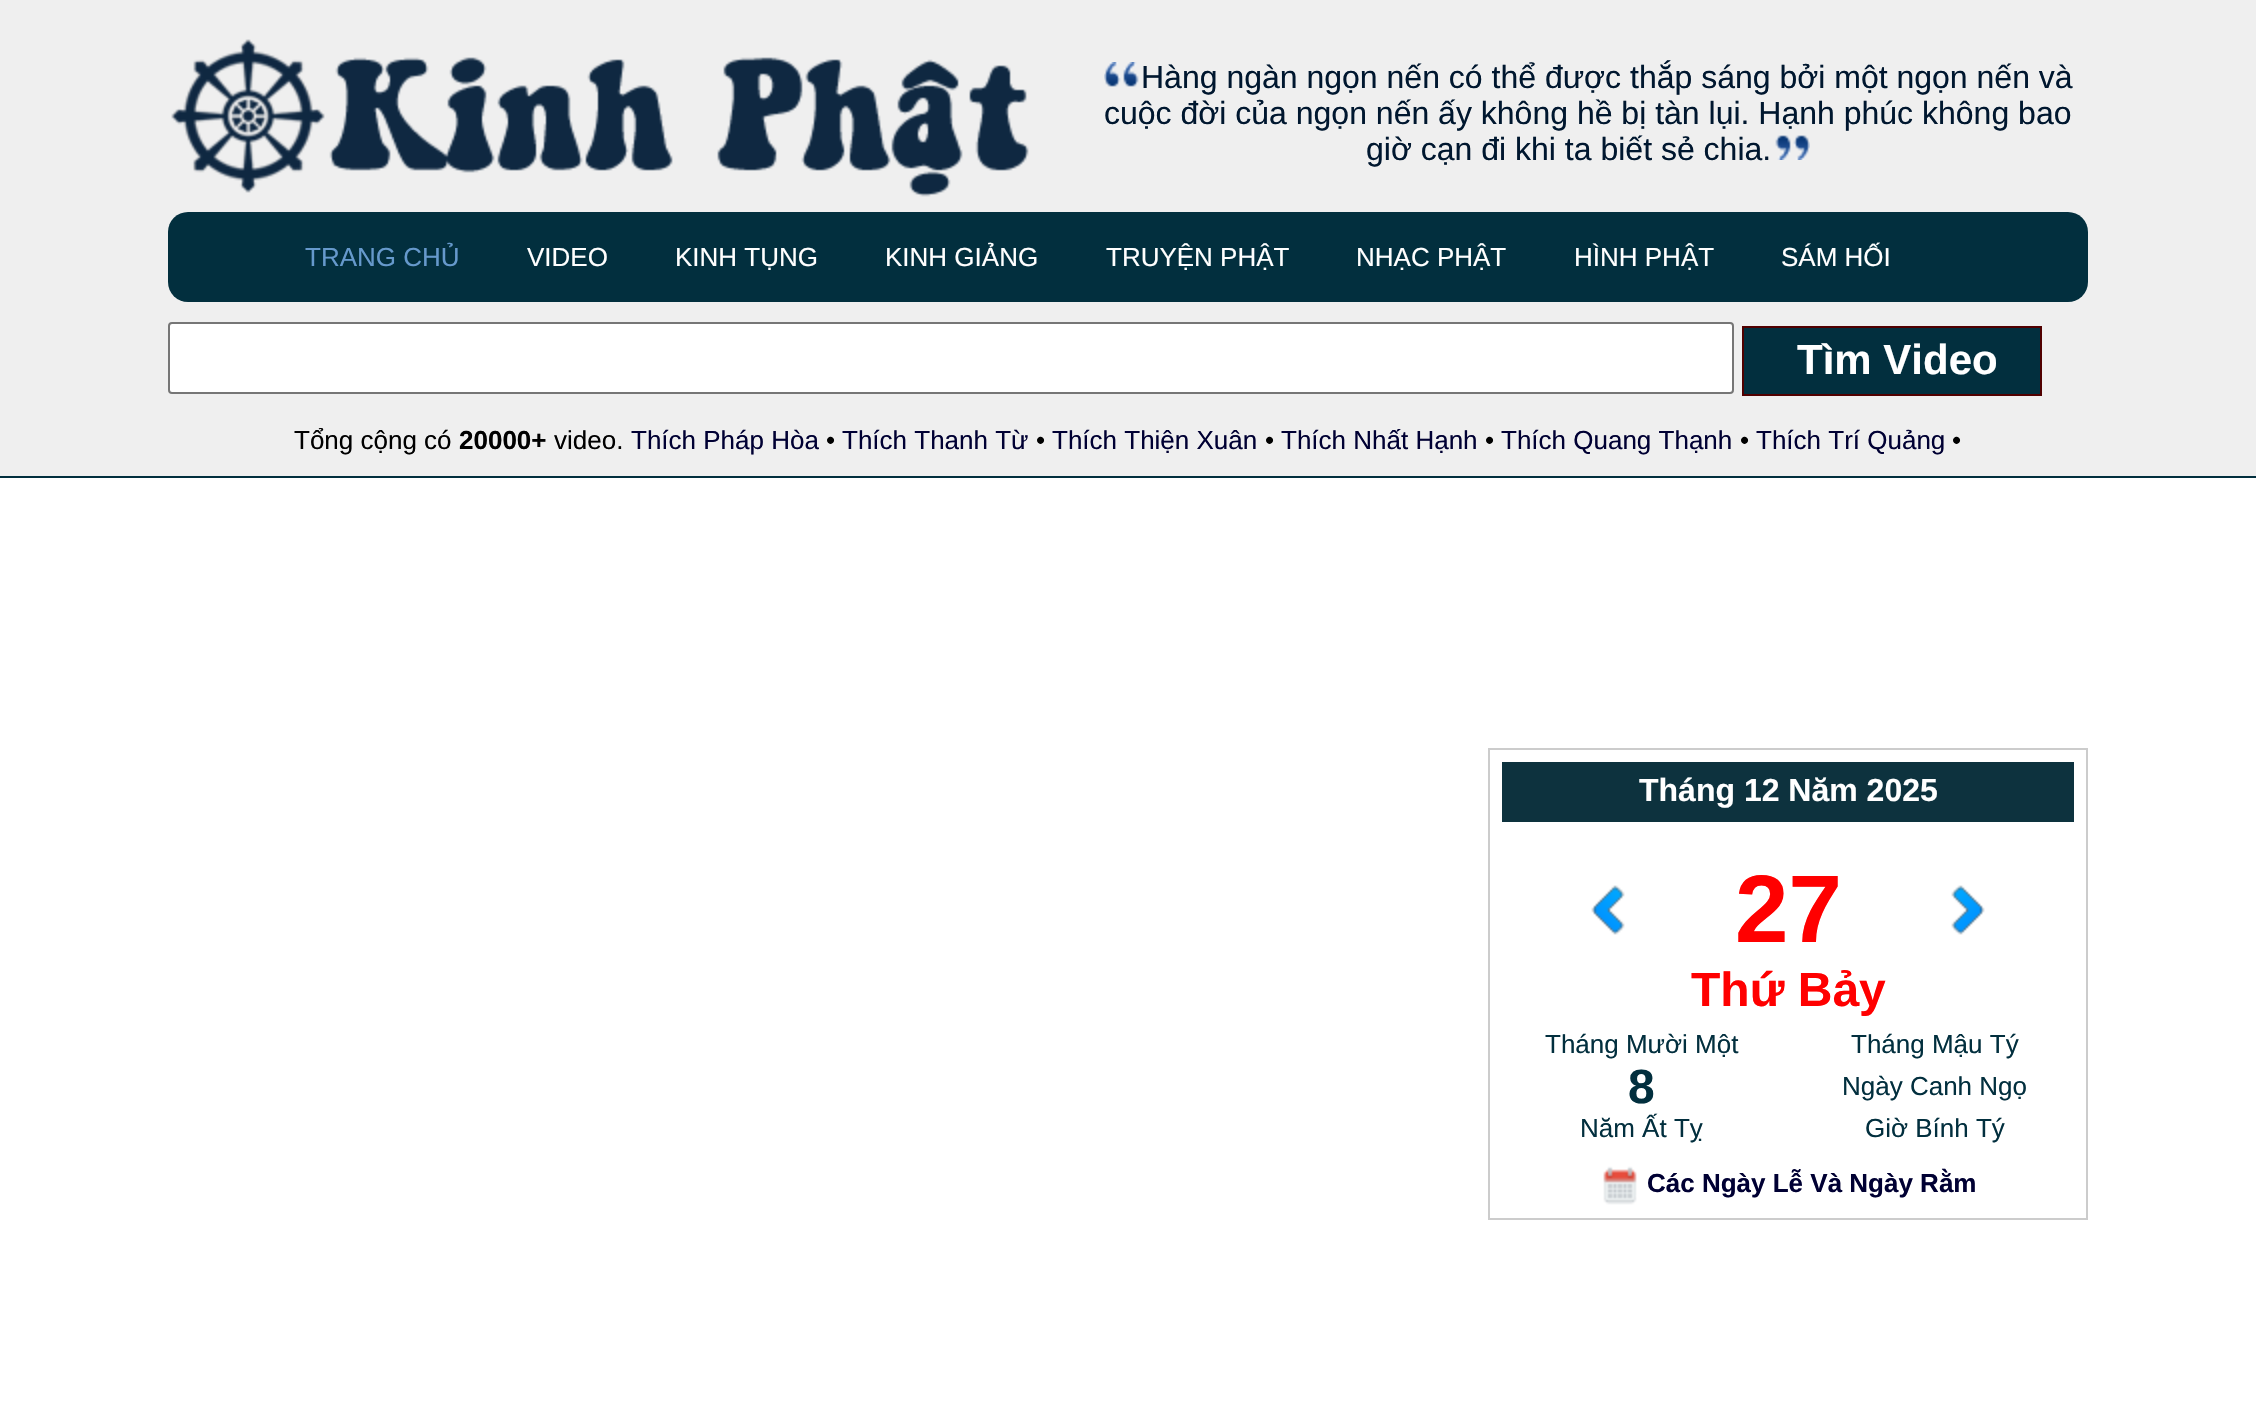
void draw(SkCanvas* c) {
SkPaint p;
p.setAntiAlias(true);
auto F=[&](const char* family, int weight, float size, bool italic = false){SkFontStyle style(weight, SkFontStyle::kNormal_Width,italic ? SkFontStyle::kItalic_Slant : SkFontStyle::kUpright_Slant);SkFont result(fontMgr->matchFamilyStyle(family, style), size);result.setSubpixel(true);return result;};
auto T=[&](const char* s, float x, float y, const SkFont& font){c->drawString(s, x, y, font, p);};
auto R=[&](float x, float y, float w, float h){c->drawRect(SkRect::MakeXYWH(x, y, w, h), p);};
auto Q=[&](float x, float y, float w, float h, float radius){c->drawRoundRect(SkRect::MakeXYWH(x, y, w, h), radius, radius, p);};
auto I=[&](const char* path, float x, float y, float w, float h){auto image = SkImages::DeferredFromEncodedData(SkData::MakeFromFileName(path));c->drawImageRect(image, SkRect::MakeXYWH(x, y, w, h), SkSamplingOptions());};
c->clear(0xffefefef);
I("1.png",171,39,858,158);
I("2.png",1104,62,35,25);
auto f1 = F("Liberation Sans",400,32);
p.setColor(0xff00172f);
T("Hàng ngàn ngọn nến có thể được thắp sáng bởi một ngọn nến và",1141,88,f1);
T("cuộc đời của ngọn nến ấy không hề bị tàn lụi. Hạnh phúc không bao",1104,124,f1);
T("giờ cạn đi khi ta biết sẻ chia.",1366,160,f1);
I("3.png",1775,135,35,25);
p.setColor(0xff022f3e);
Q(168,212,1920,90,20);
auto f2 = F("Liberation Sans",400,26);
p.setColor(0xff6699cc);
T("TRANG CHỦ",305,266,f2);
p.setColor(0xffffffff);
T("VIDEO",527,266,f2);
T("KINH TỤNG",675,266,f2);
T("KINH GIẢNG",885,266,f2);
T("TRUYỆN PHẬT",1106,266,f2);
T("NHẠC PHẬT",1356,266,f2);
T("HÌNH PHẬT",1574,266,f2);
T("SÁM HỐI",1781,266,f2);
c->drawRoundRect(SkRect::MakeXYWH(169,323,1564,70),3,3,p);
p.setStroke(true);
p.setStrokeWidth(2);
p.setColor(0xff767676);
c->drawRoundRect(SkRect::MakeXYWH(169,323,1564,70),3,3,p);
p.setStroke(false);
p.setColor(0xff022f3e);
c->drawRect(SkRect::MakeXYWH(1743,327,298,68),p);
p.setStroke(true);
p.setColor(0xff510000);
c->drawRect(SkRect::MakeXYWH(1743,327,298,68),p);
auto f3 = F("Liberation Sans",700,42);
p.setStroke(false);
p.setColor(0xffffffff);
T("Tìm Video",1797,374,f3);
p.setColor(0xff000000);
T("Tổng cộng có",294,449,f2);
auto f4 = F("Liberation Sans",700,26);
T("20000+",459,449,f4);
T("video.",554,449,f2);
p.setColor(0xff000033);
T("Thích Pháp Hòa",631,449,f2);
p.setColor(0xff000000);
T("•",826,449,f2);
p.setColor(0xff000033);
T("Thích Thanh Từ",842,449,f2);
p.setColor(0xff000000);
T("•",1036,449,f2);
p.setColor(0xff000033);
T("Thích Thiện Xuân",1052,449,f2);
p.setColor(0xff000000);
T("•",1265,449,f2);
p.setColor(0xff000033);
T("Thích Nhất Hạnh",1281,449,f2);
p.setColor(0xff000000);
T("•",1485,449,f2);
p.setColor(0xff000033);
T("Thích Quang Thạnh",1501,449,f2);
p.setColor(0xff000000);
T("•",1740,449,f2);
p.setColor(0xff000033);
T("Thích Trí Quảng",1756,449,f2);
p.setColor(0xff000000);
T("•",1952,449,f2);
p.setColor(0xffffffff);
R(0,478,2256,936);
p.setColor(0xff022f3e);
R(0,476,2256,2);
p.setStroke(true);
p.setColor(0xffcccccc);
c->drawRect(SkRect::MakeXYWH(1489,749,598,470),p);
p.setStroke(false);
p.setColor(0xff0d323e);
R(1502,762,572,60);
auto f5 = F("Liberation Sans",700,32);
p.setColor(0xffffffff);
T("Tháng 12 Năm 2025",1639,801,f5);
I("4.png",1591,885,34,50);
auto f6 = F("Liberation Sans",700,96);
p.setColor(0xffff0000);
T("27",1735,942,f6);
I("5.png",1951,885,34,50);
auto f7 = F("Liberation Sans",700,48);
T("Thứ Bảy",1691,1006,f7);
p.setColor(0xff022f3e);
T("Tháng Mười Một",1545,1053,f2);
T("8",1628,1103,f7);
T("Năm Ất Tỵ",1580,1137,f2);
T("Tháng Mậu Tý",1851,1053,f2);
T("Ngày Canh Ngọ",1842,1095,f2);
T("Giờ Bính Tý",1865,1137,f2);
I("6.png",1603,1166,34,39);
p.setColor(0xff000033);
T("Các Ngày Lễ Và Ngày Rằm",1647,1192,f4);
}
